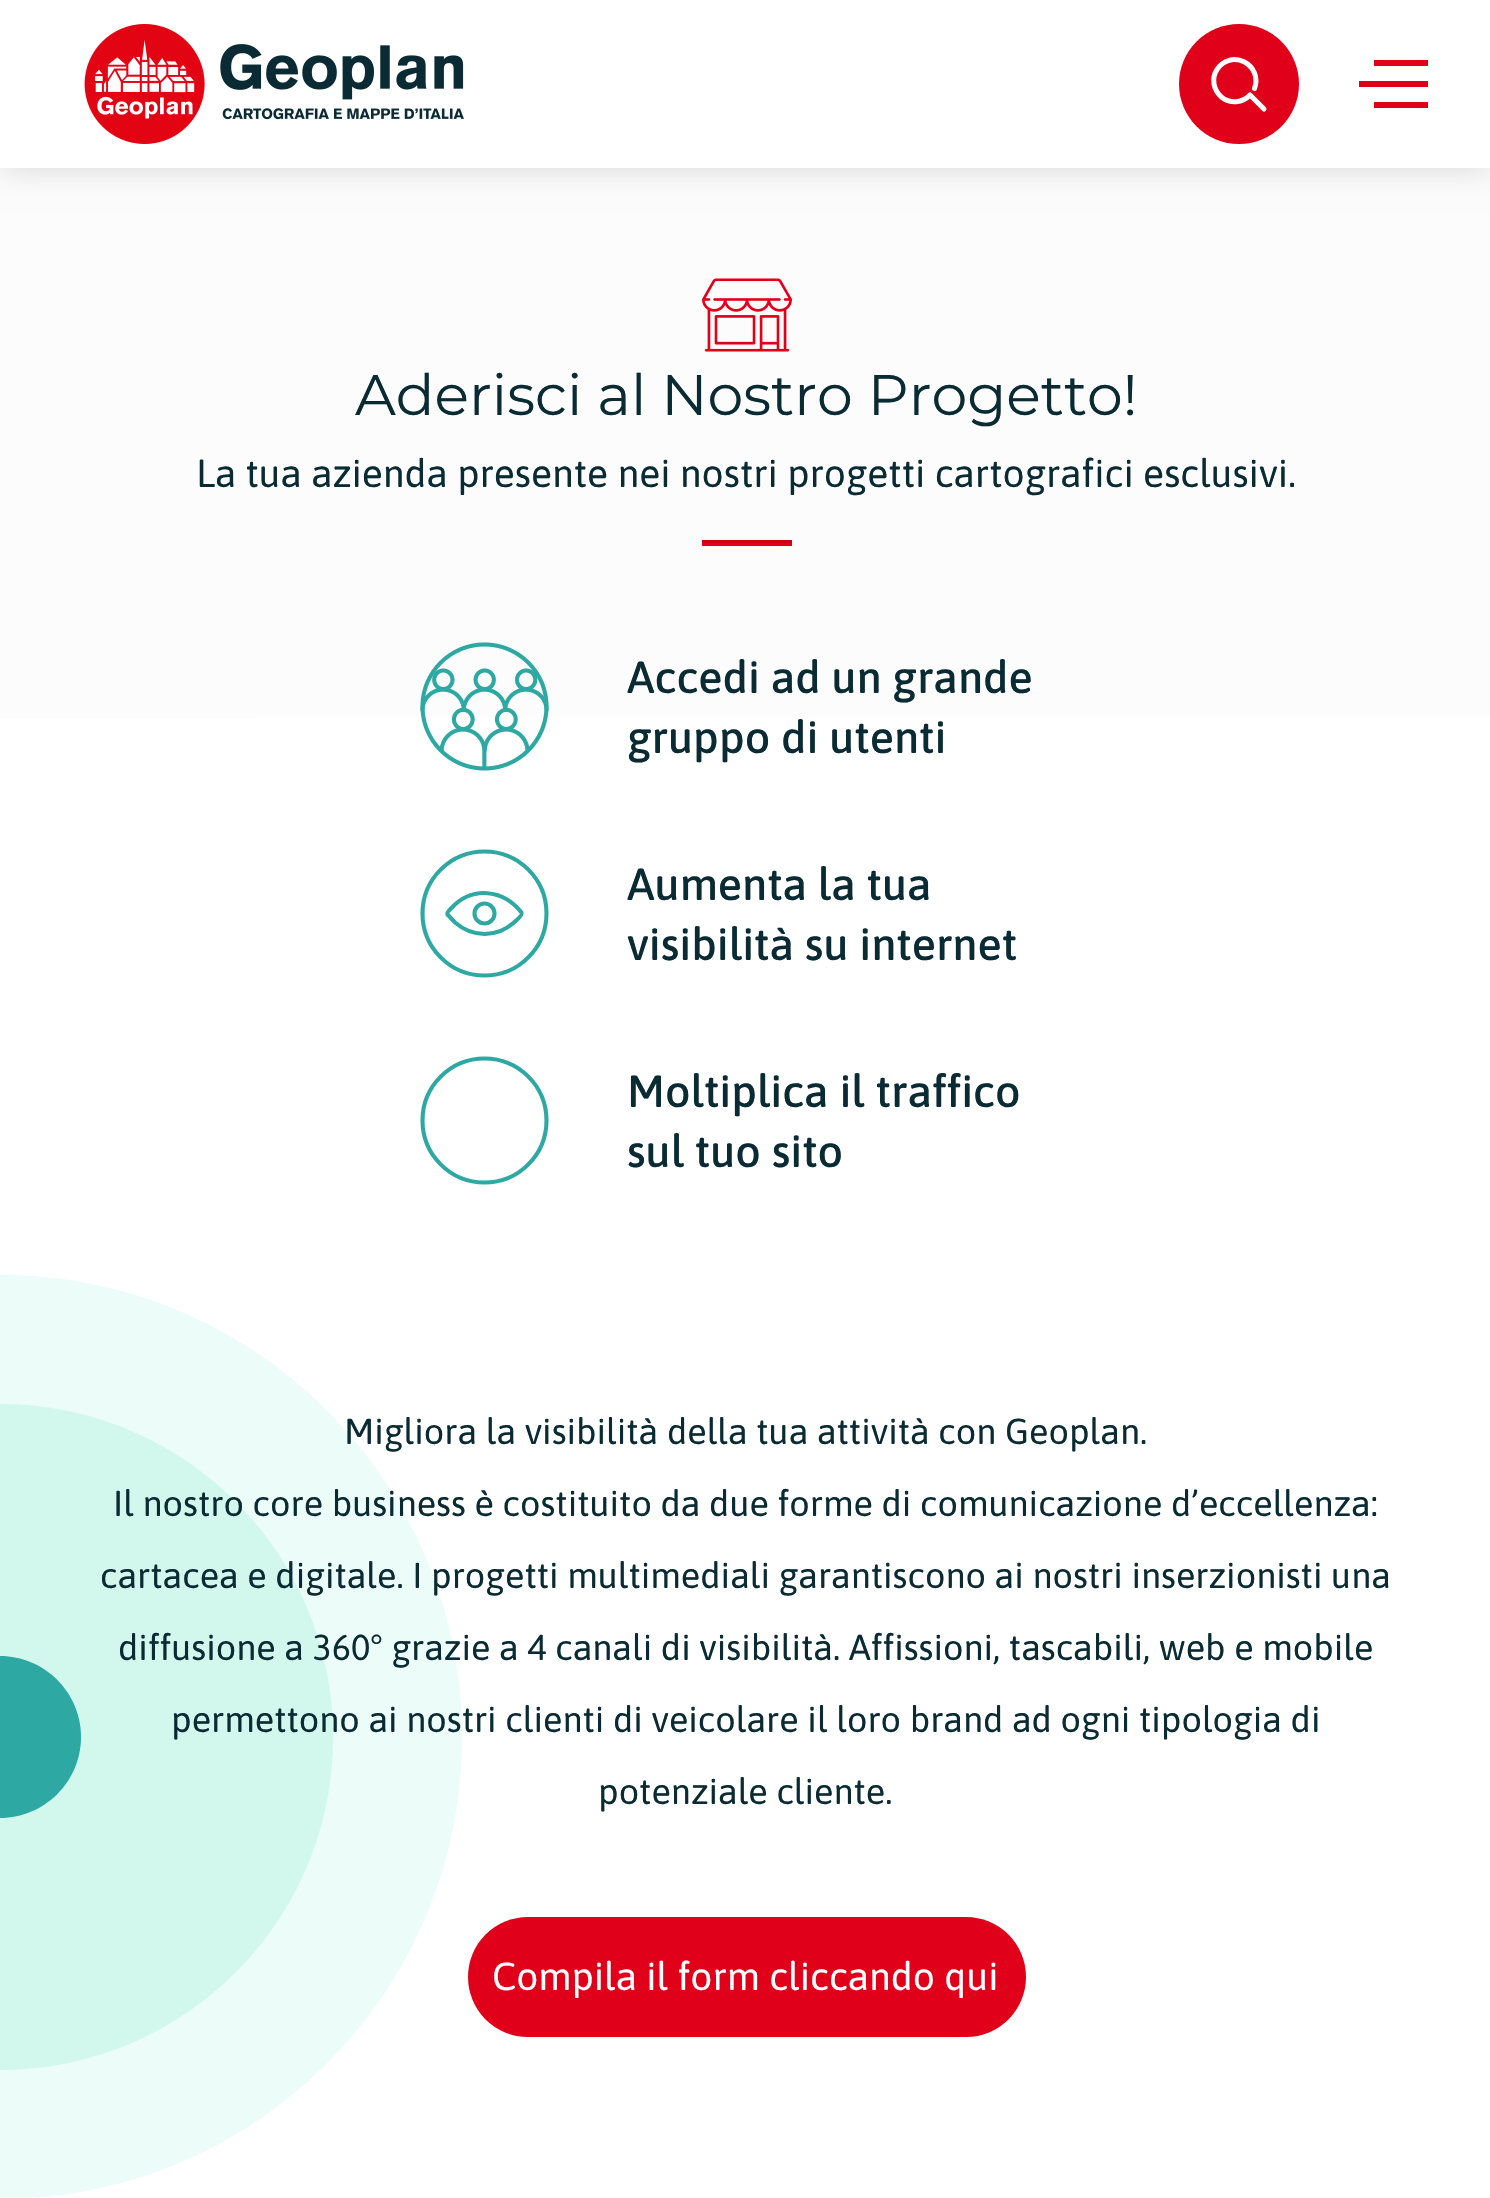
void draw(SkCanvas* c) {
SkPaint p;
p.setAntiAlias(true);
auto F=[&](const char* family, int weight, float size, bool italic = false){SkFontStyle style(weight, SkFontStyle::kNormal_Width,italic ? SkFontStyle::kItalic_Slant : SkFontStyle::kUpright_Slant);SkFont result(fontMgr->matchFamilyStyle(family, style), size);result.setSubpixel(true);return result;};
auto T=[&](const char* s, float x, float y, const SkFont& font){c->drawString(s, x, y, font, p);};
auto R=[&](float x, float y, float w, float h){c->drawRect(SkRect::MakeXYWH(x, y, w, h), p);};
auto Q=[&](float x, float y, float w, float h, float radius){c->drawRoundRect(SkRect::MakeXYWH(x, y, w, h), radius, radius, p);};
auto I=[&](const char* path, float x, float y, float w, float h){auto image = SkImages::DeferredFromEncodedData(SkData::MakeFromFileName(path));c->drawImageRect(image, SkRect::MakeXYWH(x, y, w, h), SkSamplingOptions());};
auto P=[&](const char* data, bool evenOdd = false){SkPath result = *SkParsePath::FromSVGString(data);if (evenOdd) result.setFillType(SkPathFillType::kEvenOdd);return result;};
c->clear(0xffffffff);
{
const SkColor colors[] = {0xfffcfcfc,0xfffcfcfc,0xffffffff};
const float stops[] = {0,.5,1};
const SkPoint ends[] = {{745,150}, {746,1122}};
p.setShader(SkGradientShader::MakeLinear(ends, colors, stops, 3, SkTileMode::kClamp));
p.setAlpha(255);
}
R(0,168,1490,550);
p.setShader(nullptr);
p.setColor(0x26000000);
p.setMaskFilter(SkMaskFilter::MakeBlur(kNormal_SkBlurStyle, 15));
c->drawRect(SkRect::MakeXYWH(0,0,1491,168),p);
p.setMaskFilter(nullptr);
p.setColor(0xffffffff);
R(0,0,1490,168);
I("1.png",84,24,380,120);
p.setColor(0xffe1001a);
c->drawCircle(1239,84,60,p);
p.setStroke(true);
p.setStrokeWidth(5);
p.setStrokeCap(SkPaint::kRound_Cap);
p.setStrokeJoin(SkPaint::kRound_Join);
p.setColor(0xffffffff);
c->drawPath(P("M1254.5 88.5c4-10.5-.5-21.5-10-26.5c-10-5-21.5-2-27.5 7.5c-6 9-3.5 21 5 28c8.5 6.5 20.5 5.5 28-2.5m0 0l14 14"),p);
p.setStroke(false);
p.setColor(0xffe1001a);
R(1374,60,54,6);
R(1359,81,69,6);
R(1374,102,54,6);
I("2.png",702,278,90,74);
auto f1 = F("Montserrat",400,57);
p.setColor(0xff0a2b33);
T("Aderisci al Nostro Progetto!",355,415,f1);
auto f2 = F("Asap",400,39);
T("La tua azienda presente nei nostri progetti cartografici esclusivi.",196,487,f2);
p.setColor(0xffe1001a);
R(702,543,90,3);
p.setColor(0xffcb0017);
R(702,540,90,3);
I("3.png",420,642,129,129);
auto f3 = F("Asap",500,45);
p.setColor(0xff0a2b33);
T("Accedi ad un grande",627,693,f3);
T("gruppo di utenti",627,753,f3);
p.setStroke(true);
p.setStrokeWidth(4.1);
p.setStrokeCap(SkPaint::kButt_Cap);
p.setStrokeJoin(SkPaint::kMiter_Join);
p.setColor(0xff2da8a2);
c->drawCircle(484.5,913.5,62,p);
c->drawCircle(484.5,913.5,10,p);
p.setStrokeCap(SkPaint::kRound_Cap);
c->drawPath(P("M521.5 912.5c2 2.5-6.5 9-7.5 10c-17.5 15.5-41.5 15-59 0l-7.5-8c-1-2 2.5-5 4-6.5c20.5-22 51.5-19 70 4.5z"),p);
p.setStroke(false);
p.setColor(0xff0a2b33);
T("Aumenta la tua",627,900,f3);
T("visibilità su internet",627,960,f3);
p.setStroke(true);
p.setStrokeCap(SkPaint::kButt_Cap);
p.setColor(0xff2da8a2);
c->drawCircle(484.5,1120.5,62,p);
p.setStroke(false);
p.setColor(0xff0a2b33);
T("Moltiplica il traffico",627,1107,f3);
T("sul tuo sito",627,1167,f3);
p.setColor(0xffecfcf8);
c->drawPath(P("M0 1275c255 0 462 207 462 462c0 255-207 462-462 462z"),p);
auto f4 = F("Asap",400,36);
p.setColor(0xff0a2b33);
T("Migliora la visibilità della tua attività con Geoplan.",344,1444,f4);
p.setColor(0xffd2f8ed);
c->drawPath(P("M0 1404c184 0 333 149 333 333c0 184-149 333-333 333z"),p);
p.setColor(0xff0a2b33);
T("Il nostro core business è costituito da due forme di comunicazione d’eccellenza:",113,1516,f4);
T("cartacea e digitale. I progetti multimediali garantiscono ai nostri inserzionisti una",100,1588,f4);
T("diffusione a 360° grazie a 4 canali di visibilità. Affissioni, tascabili, web e mobile",118,1660,f4);
T("permettono ai nostri clienti di veicolare il loro brand ad ogni tipologia di",171,1732,f4);
T("potenziale cliente.",598,1804,f4);
p.setColor(0xffe1001a);
Q(468,1917,558,120,60);
p.setColor(0xffffffff);
T("Compila il form cliccando qui",492,1990,f2);
p.setColor(0xff2da8a2);
c->drawPath(P("M0 1656c44.5 0 81 36.5 81 81c0 44.5-36.5 81-81 81z"),p);
}
